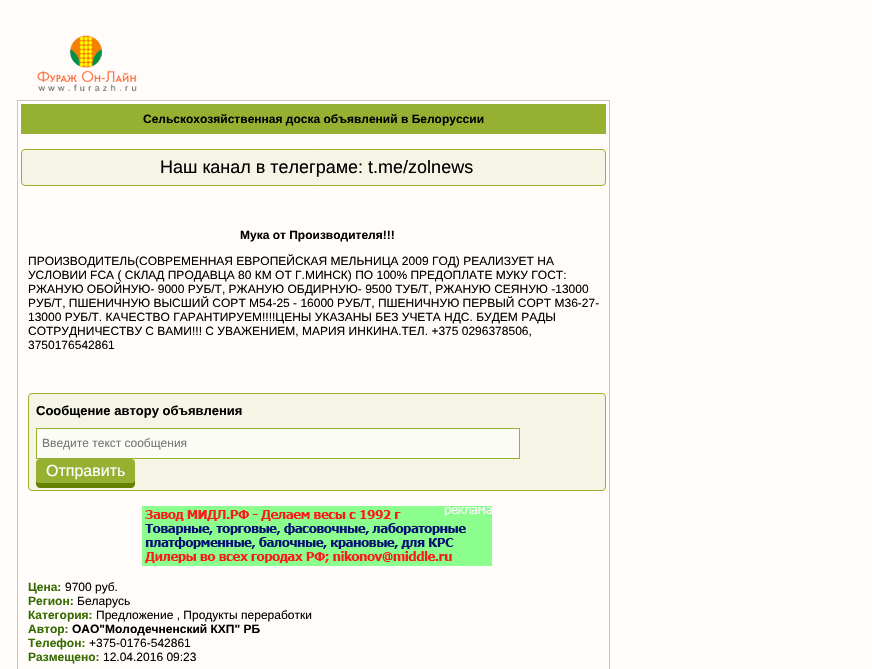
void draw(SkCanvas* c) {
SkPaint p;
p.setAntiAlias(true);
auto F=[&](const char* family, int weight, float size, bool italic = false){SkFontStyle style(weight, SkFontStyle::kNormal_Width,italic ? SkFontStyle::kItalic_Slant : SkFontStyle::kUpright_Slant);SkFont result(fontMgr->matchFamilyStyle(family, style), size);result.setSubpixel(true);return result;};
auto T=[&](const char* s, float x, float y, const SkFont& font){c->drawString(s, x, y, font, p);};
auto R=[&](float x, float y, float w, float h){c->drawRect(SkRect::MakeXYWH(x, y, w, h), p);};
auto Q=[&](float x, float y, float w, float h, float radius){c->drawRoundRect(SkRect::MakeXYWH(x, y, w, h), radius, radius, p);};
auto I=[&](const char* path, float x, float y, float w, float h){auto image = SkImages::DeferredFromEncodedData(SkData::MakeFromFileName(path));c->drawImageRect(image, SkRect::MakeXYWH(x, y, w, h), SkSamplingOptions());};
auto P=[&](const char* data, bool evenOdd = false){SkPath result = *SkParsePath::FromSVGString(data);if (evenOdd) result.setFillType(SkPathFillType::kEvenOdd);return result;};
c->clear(0xfffffcf9);
I("1.png",37,35,100,57);
p.setStroke(true);
p.setStrokeWidth(1);
p.setColor(0xffc3c6c9);
c->drawRect(SkRect::MakeXYWH(17.5,100.5,592,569),p);
p.setStroke(false);
p.setColor(0xff96b032);
R(21,104,585,30);
auto f1 = F("Liberation Sans",700,12);
p.setColor(0xff000000);
T("Сельскохозяйственная доска объявлений в Белоруссии",143,123,f1);
p.setColor(0xfff5f4e5);
c->drawRoundRect(SkRect::MakeXYWH(21.5,149.5,584,36),3.5,3.5,p);
p.setStroke(true);
p.setColor(0xff96b032);
c->drawRoundRect(SkRect::MakeXYWH(21.5,149.5,584,36),3.5,3.5,p);
auto f2 = F("Liberation Sans",400,18);
p.setStroke(false);
p.setColor(0xff000000);
T("Наш канал в телеграме: t.me/zolnews",160,173,f2);
T("Мука от Производителя!!!",240,239,f1);
auto f3 = F("Liberation Sans",400,12);
T("ПРОИЗВОДИТЕЛЬ(СОВРЕМЕННАЯ ЕВРОПЕЙСКАЯ МЕЛЬНИЦА 2009 ГОД) РЕАЛИЗУЕТ НА",28,265,f3);
T("УСЛОВИИ FCA ( СКЛАД ПРОДАВЦА 80 КМ ОТ Г.МИНСК) ПО 100% ПРЕДОПЛАТЕ МУКУ ГОСТ:",28,279,f3);
T("РЖАНУЮ ОБОЙНУЮ- 9000 РУБ/Т, РЖАНУЮ ОБДИРНУЮ- 9500 ТУБ/Т, РЖАНУЮ СЕЯНУЮ -13000",28,293,f3);
T("РУБ/Т, ПШЕНИЧНУЮ ВЫСШИЙ СОРТ М54-25 - 16000 РУБ/Т, ПШЕНИЧНУЮ ПЕРВЫЙ СОРТ М36-27-",28,307,f3);
T("13000 РУБ/Т. КАЧЕСТВО ГАРАНТИРУЕМ!!!!ЦЕНЫ УКАЗАНЫ БЕЗ УЧЕТА НДС. БУДЕМ РАДЫ",28,321,f3);
T("СОТРУДНИЧЕСТВУ С ВАМИ!!! С УВАЖЕНИЕМ, МАРИЯ ИНКИНА.ТЕЛ. +375 0296378506,",28,335,f3);
T("3750176542861",28,349,f3);
p.setColor(0xfff5f4e5);
c->drawRoundRect(SkRect::MakeXYWH(28.5,393.5,577,97),3.5,3.5,p);
p.setStroke(true);
p.setColor(0xff96b032);
c->drawRoundRect(SkRect::MakeXYWH(28.5,393.5,577,97),3.5,3.5,p);
auto f4 = F("Liberation Sans",700,13);
p.setStroke(false);
p.setColor(0xff000000);
T("Сообщение автору объявления",36,415,f4);
p.setColor(0xfffcfcf7);
c->drawRect(SkRect::MakeXYWH(36.5,428.5,483,30),p);
p.setStroke(true);
p.setColor(0xff96b032);
c->drawRect(SkRect::MakeXYWH(36.5,428.5,483,30),p);
p.setStroke(false);
p.setColor(0xff757575);
T("Введите текст сообщения",42,447,f3);
p.setColor(0xff668002);
c->drawPath(P("M36 479v5c0 2 2 4 4 4h91c2 0 4-2 4-4v-5c0 2-2 4-4 4h-91c-2 0-4-2-4-4z"),p);
p.setColor(0xff96b032);
Q(36,459,99,24,4);
auto f5 = F("Liberation Sans",400,16);
p.setColor(0xffffffff);
T("Отправить",46,476,f5);
I("2.png",142,506,350,60);
p.setColor(0xff376a00);
T("Цена:",28,591,f1);
p.setColor(0xff000000);
T("9700 руб.",65,591,f3);
p.setColor(0xff376a00);
T("Регион:",28,605,f1);
p.setColor(0xff000000);
T("Беларусь",77,605,f3);
p.setColor(0xff376a00);
T("Категория:",28,619,f1);
p.setColor(0xff000000);
T("Предложение , Продукты переработки",96,619,f3);
p.setColor(0xff376a00);
T("Автор:",28,633,f1);
p.setColor(0xff000000);
T("ОАО\"Молодечненский КХП\" РБ",72,633,f1);
p.setColor(0xff376a00);
T("Телефон:",28,647,f1);
p.setColor(0xff000000);
T("+375-0176-542861",89,647,f3);
p.setColor(0xff376a00);
T("Размещено:",28,661,f1);
p.setColor(0xff000000);
T("12.04.2016 09:23",103,661,f3);
}
